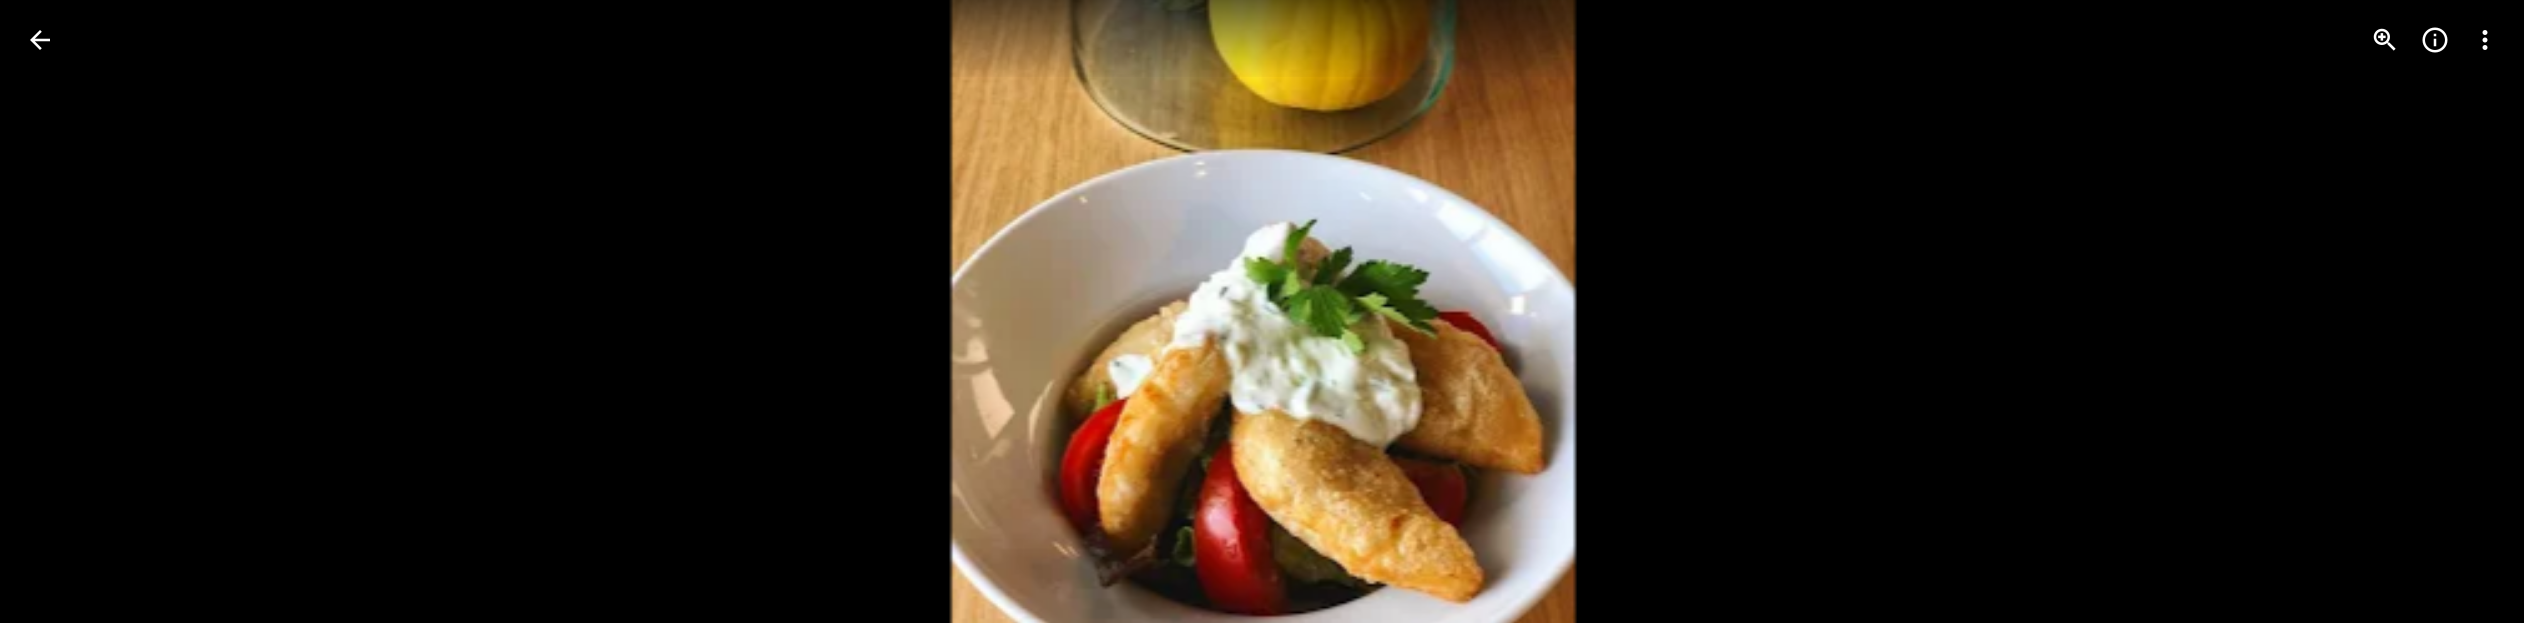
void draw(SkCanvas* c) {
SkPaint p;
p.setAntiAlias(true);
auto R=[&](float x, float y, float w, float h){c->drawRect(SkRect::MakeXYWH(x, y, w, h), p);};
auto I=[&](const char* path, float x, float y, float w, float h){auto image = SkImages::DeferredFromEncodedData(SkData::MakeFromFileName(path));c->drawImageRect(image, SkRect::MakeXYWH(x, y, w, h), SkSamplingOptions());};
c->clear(0xff000000);
I("5.png",949,0,628,623);
{
const SkColor colors[] = {0x99000000,0x00000000};
const float stops[] = {0,1};
const SkPoint ends[] = {{1263,0}, {1263,80}};
p.setShader(SkGradientShader::MakeLinear(ends, colors, stops, 2, SkTileMode::kClamp));
p.setAlpha(255);
}
R(949,0,628,77);
I("1.png",30,30,20,20);
I("2.png",2373,28,23,23);
I("3.png",2422,27,26,26);
I("4.png",2482,30,6,20);
}
